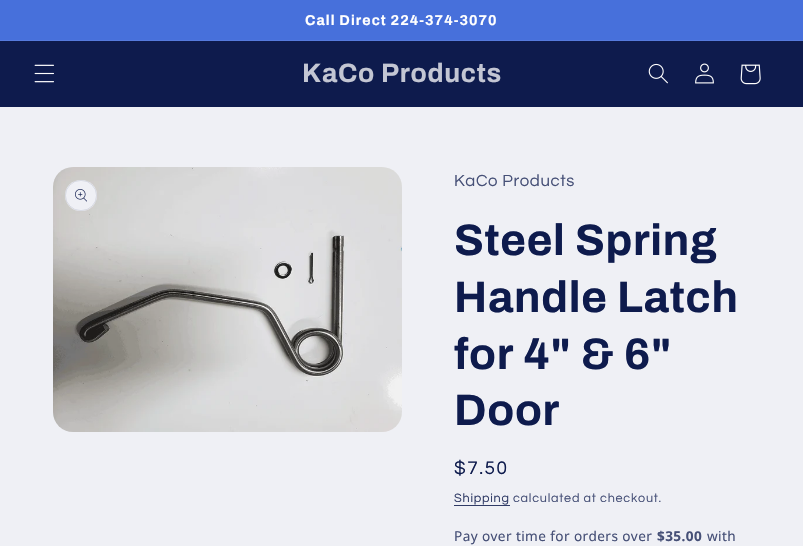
void draw(SkCanvas* c) {
SkPaint p;
p.setAntiAlias(true);
auto F=[&](const char* family, int weight, float size, bool italic = false){SkFontStyle style(weight, SkFontStyle::kNormal_Width,italic ? SkFontStyle::kItalic_Slant : SkFontStyle::kUpright_Slant);SkFont result(fontMgr->matchFamilyStyle(family, style), size);result.setSubpixel(true);return result;};
auto L=[&](const char* s, float x, float y, const SkFont& font, const SkPaint& ink, float letter, float word){std::vector<SkGlyphID> glyphs(font.countText(s, strlen(s), SkTextEncoding::kUTF8));std::vector<float> xs(glyphs.size());font.textToGlyphs(s, strlen(s), SkTextEncoding::kUTF8, glyphs);font.getXPos(glyphs, xs, x);float extra = 0;for (size_t i = 0; i < glyphs.size(); i++) {xs[i] += extra;extra += letter + word * (glyphs[i] == font.unicharToGlyph(' '));}c->drawTextBlob(SkTextBlob::MakeFromPosHGlyphs(glyphs, xs, y, font), 0, 0, ink);};
auto R=[&](float x, float y, float w, float h){c->drawRect(SkRect::MakeXYWH(x, y, w, h), p);};
auto Q=[&](float x, float y, float w, float h, float radius){c->drawRoundRect(SkRect::MakeXYWH(x, y, w, h), radius, radius, p);};
auto I=[&](const char* path, float x, float y, float w, float h){auto image = SkImages::DeferredFromEncodedData(SkData::MakeFromFileName(path));c->drawImageRect(image, SkRect::MakeXYWH(x, y, w, h), SkSamplingOptions());};
c->clear(0xffeff0f5);
p.setColor(0xff4770db);
R(0,0,803,40);
p.setColor(0xff567bde);
R(0,40,803,1);
auto f1 = F("Archivo",700,14.25);
p.setColor(0xffffffff);
L("Call Direct 224-374-3070",305,25,f1,p,1.05,0);
p.setColor(0xff0e1b4d);
R(0,41,803,66);
I("1.png",34,64,20,19);
auto f2 = F("Archivo",700,26.5);
p.setColor(0xffc3c6d3);
L("KaCo Products",302,82,f2,p,.7,0);
I("2.png",648,63,20,21);
I("3.png",695,63,19,21);
I("4.png",740,64,21,21);
I("5.png",53,167,349,265);
p.setColor(0xffeff0f5);
Q(65,180,32,31,15.5);
p.setStroke(true);
p.setStrokeWidth(1);
p.setColor(0x1a0e1b4d);
c->drawRoundRect(SkRect::MakeXYWH(65.5,180.5,31,30),15,15,p);
I("6.png",75,189,12,13);
auto f3 = F("Questrial",400,16.75);
p.setStroke(false);
p.setColor(0xff465077);
L("KaCo Products",454,186,f3,p,.6,0);
auto f4 = F("Archivo",700,44);
p.setColor(0xff0e1b4d);
L("Steel Spring",454,255,f4,p,.7,0);
L("Handle Latch",454,312,f4,p,.7,0);
L("for 4\" & 6\"",454,369,f4,p,.7,0);
L("Door",454,425,f4,p,.7,0);
auto f5 = F("Questrial",400,19);
L("$7.50",454,474,f5,p,1.5,0);
auto f6 = F("Questrial",400,12.6);
p.setColor(0xff303b66);
L("Shipping",454,502,f6,p,.75,0);
R(454,505,56,1);
p.setColor(0xff465077);
L("calculated at checkout.",513,502,f6,p,.75,0);
auto f7 = F("Noto Sans",400,13.6);
L("Pay over time for orders over",454,541,f7,p,.4,0);
auto f8 = F("Noto Sans",700,13.6);
L("$35.00",657,541,f8,p,.4,0);
L("with",707,541,f7,p,.4,0);
}
